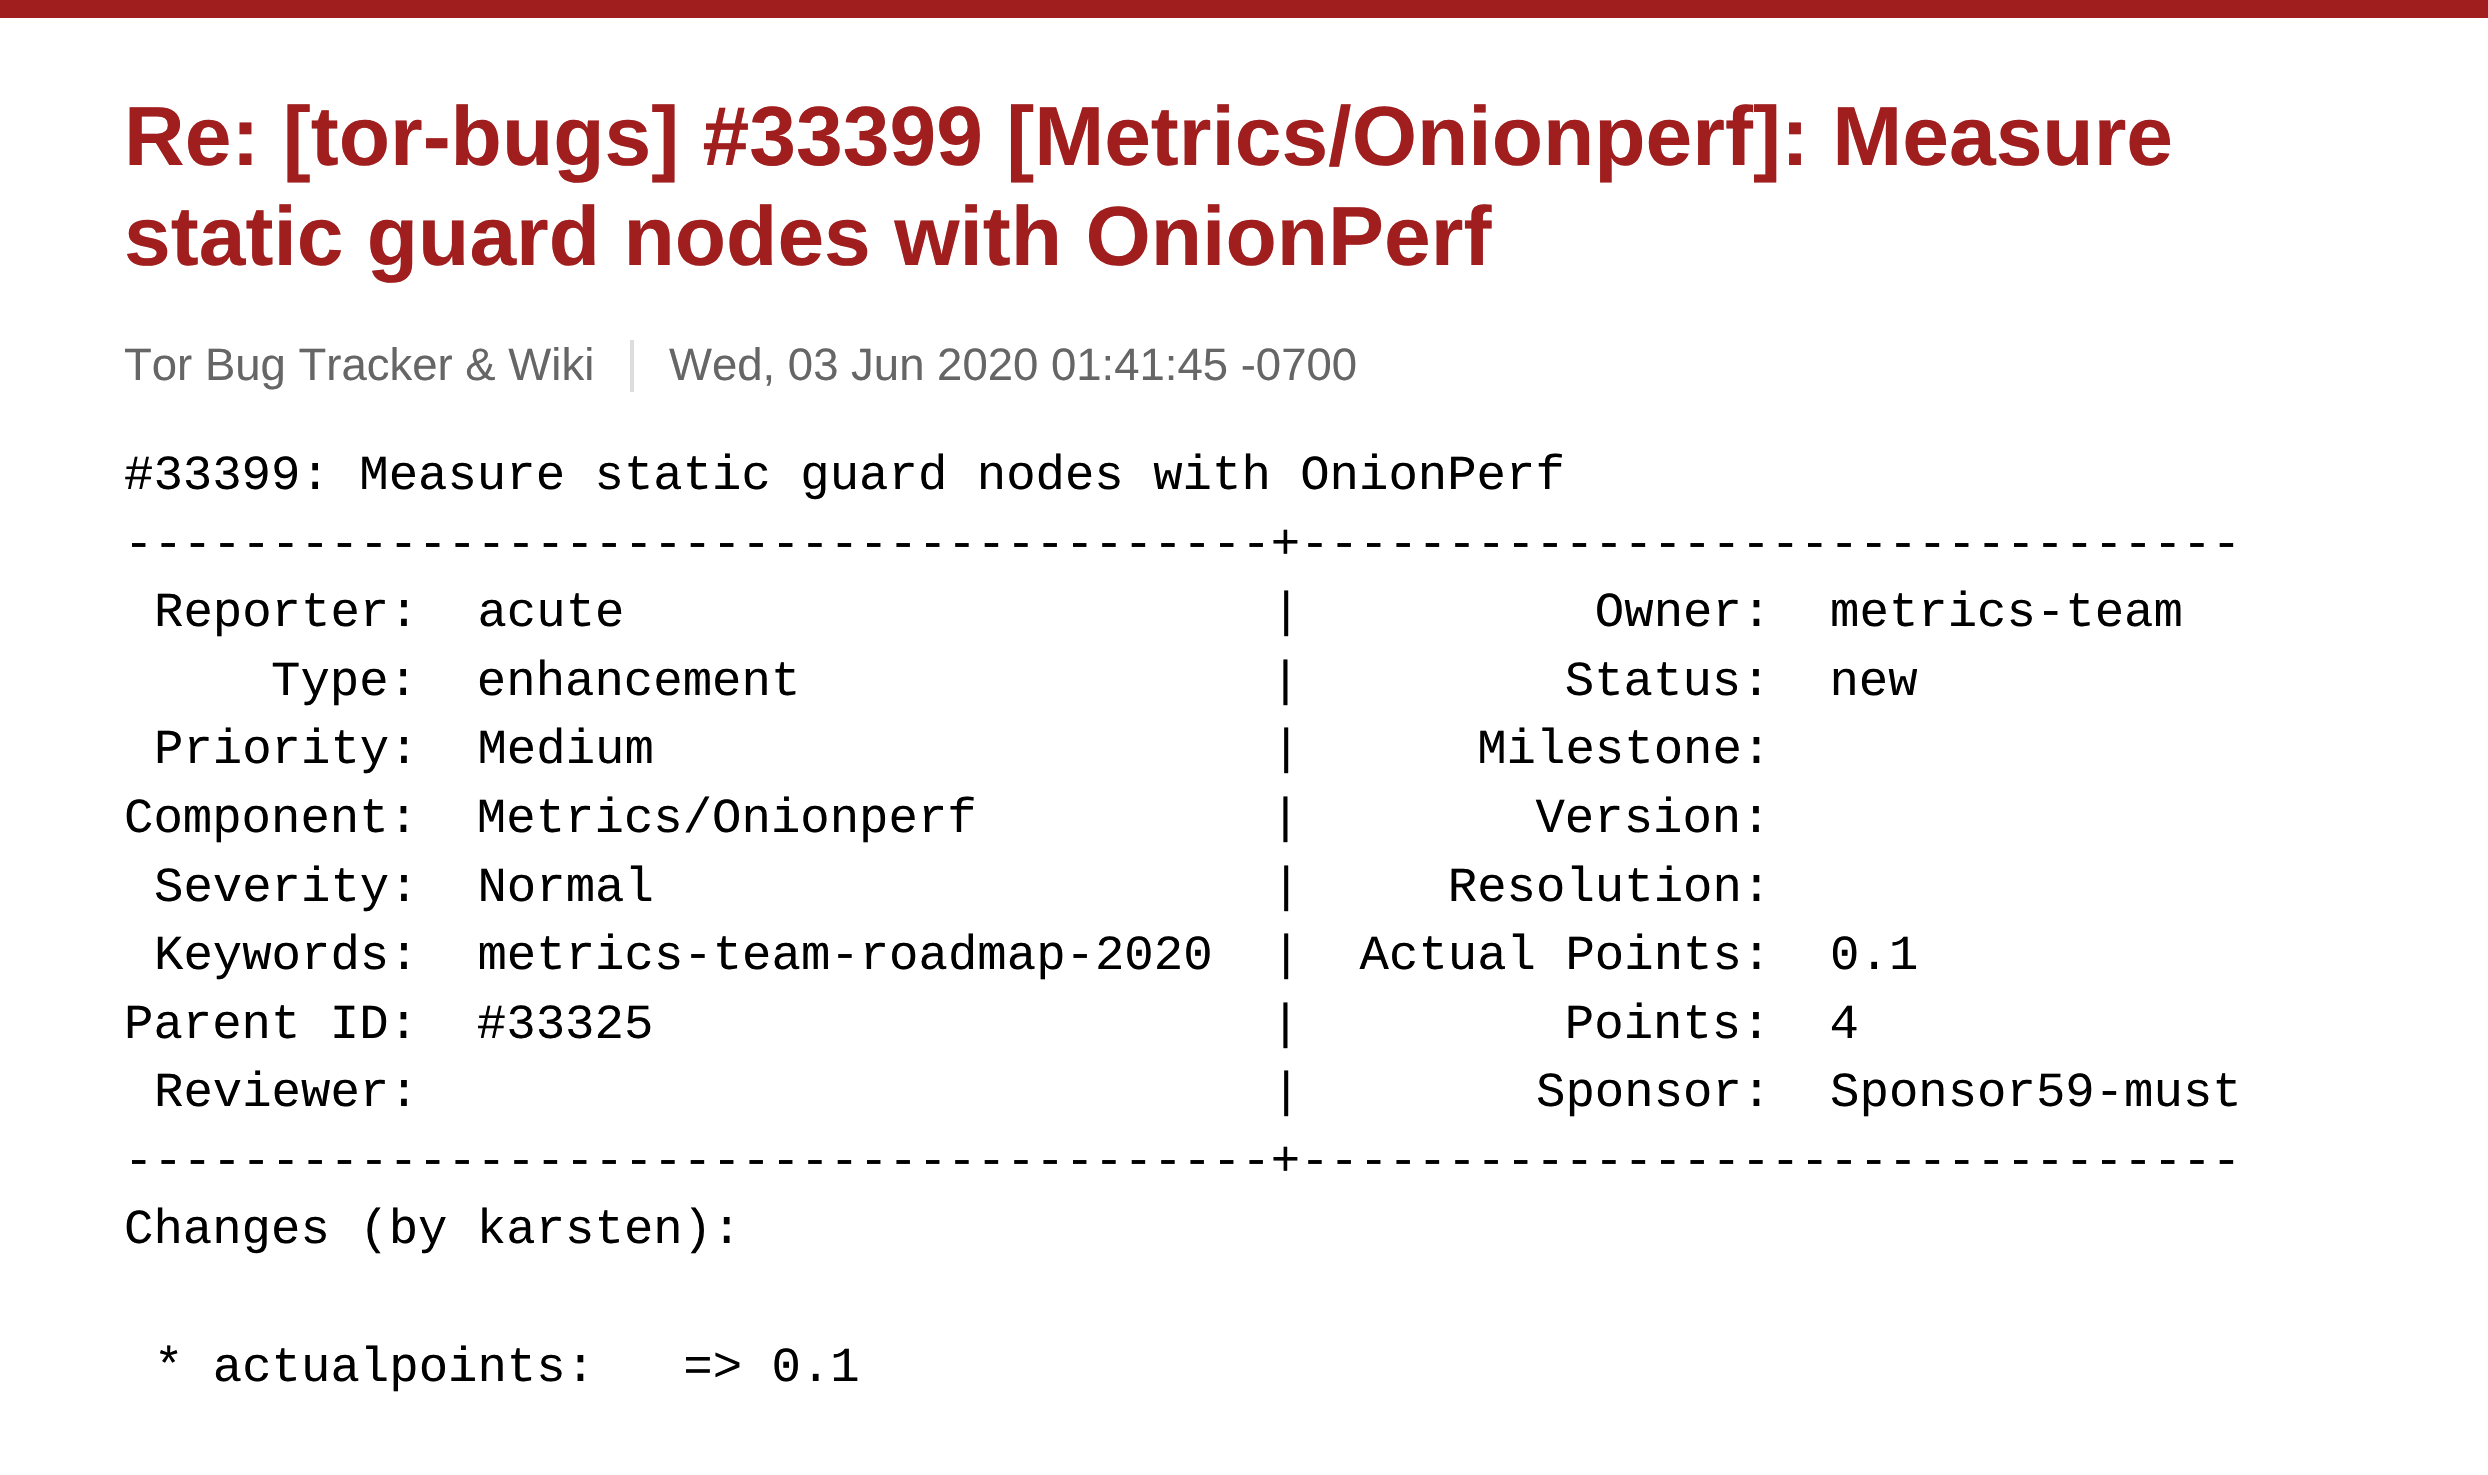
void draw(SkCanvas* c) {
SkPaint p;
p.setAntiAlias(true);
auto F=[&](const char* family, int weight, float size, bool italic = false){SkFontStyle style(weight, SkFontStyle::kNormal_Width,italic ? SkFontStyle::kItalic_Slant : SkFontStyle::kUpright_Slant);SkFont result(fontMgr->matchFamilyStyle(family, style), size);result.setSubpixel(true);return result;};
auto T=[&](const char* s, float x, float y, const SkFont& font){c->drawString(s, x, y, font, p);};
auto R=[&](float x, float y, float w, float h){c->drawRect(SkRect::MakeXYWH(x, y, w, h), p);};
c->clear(0xffffffff);
p.setColor(0xffa01e1e);
R(0,0,2488,18);
auto f1 = F("Liberation Sans",700,84);
T("Re: [tor-bugs] #33399 [Metrics/Onionperf]: Measure",124,165,f1);
T("static guard nodes with OnionPerf",124,265,f1);
auto f2 = F("Liberation Sans",400,45.5);
p.setColor(0xff666666);
T("Tor Bug Tracker & Wiki",124,380,f2);
p.setColor(0xffdddddd);
R(630,340,4,52);
p.setColor(0xff666666);
T("Wed, 03 Jun 2020 01:41:45 -0700",669,380,f2);
auto f3 = F("Liberation Mono",400,49);
p.setColor(0xff000000);
T("#33399: Measure static guard nodes with OnionPerf",124,489,f3);
T("---------------------------------------+--------------------------------",124,558,f3);
T("Reporter:  acute                      |          Owner:  metrics-team",154,626,f3);
T("Type:  enhancement                |         Status:  new",271,695,f3);
T("Priority:  Medium                     |      Milestone:",154,763,f3);
T("Component:  Metrics/Onionperf          |        Version:",124,832,f3);
T("Severity:  Normal                     |     Resolution:",154,901,f3);
T("Keywords:  metrics-team-roadmap-2020  |  Actual Points:  0.1",154,969,f3);
T("Parent ID:  #33325                     |         Points:  4",124,1038,f3);
T("Reviewer:                             |        Sponsor:  Sponsor59-must",154,1106,f3);
T("---------------------------------------+--------------------------------",124,1175,f3);
T("Changes (by karsten):",124,1243,f3);
T("* actualpoints:   => 0.1",154,1381,f3);
}
